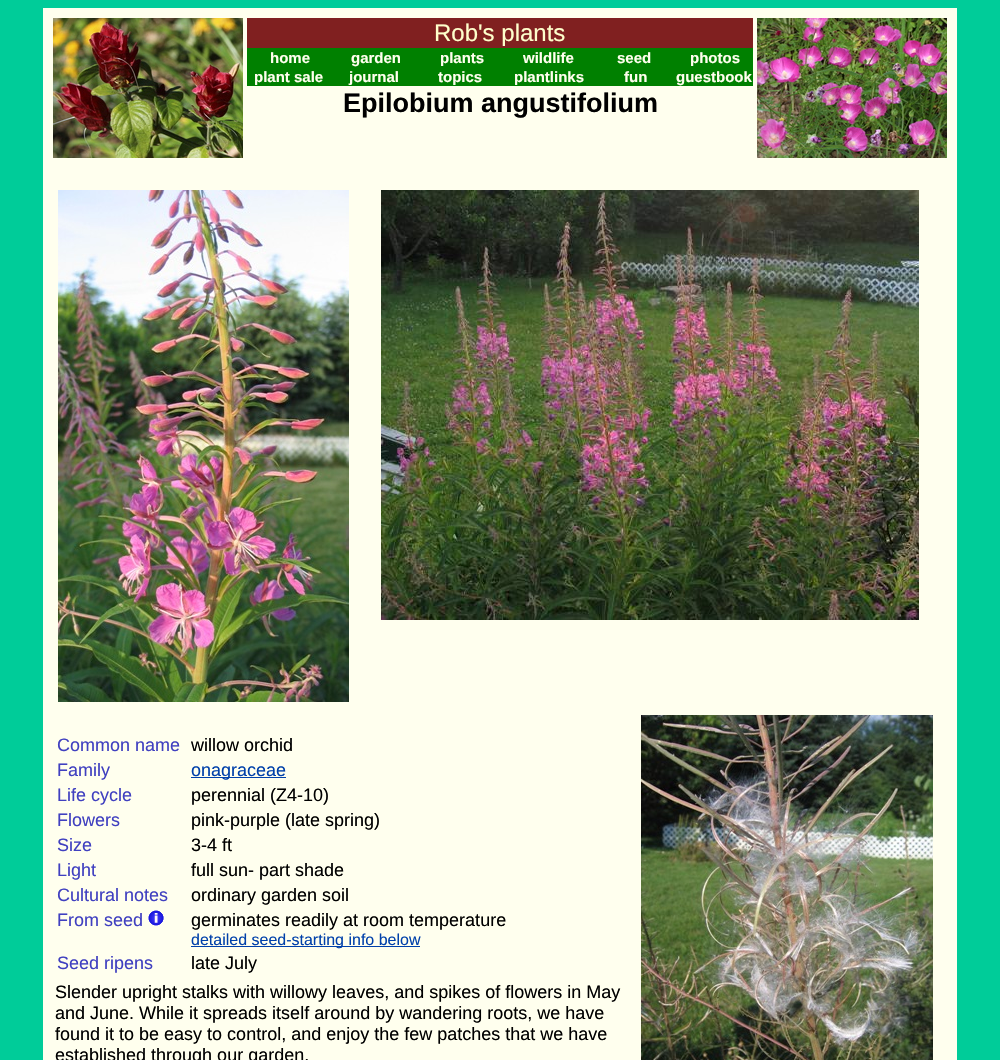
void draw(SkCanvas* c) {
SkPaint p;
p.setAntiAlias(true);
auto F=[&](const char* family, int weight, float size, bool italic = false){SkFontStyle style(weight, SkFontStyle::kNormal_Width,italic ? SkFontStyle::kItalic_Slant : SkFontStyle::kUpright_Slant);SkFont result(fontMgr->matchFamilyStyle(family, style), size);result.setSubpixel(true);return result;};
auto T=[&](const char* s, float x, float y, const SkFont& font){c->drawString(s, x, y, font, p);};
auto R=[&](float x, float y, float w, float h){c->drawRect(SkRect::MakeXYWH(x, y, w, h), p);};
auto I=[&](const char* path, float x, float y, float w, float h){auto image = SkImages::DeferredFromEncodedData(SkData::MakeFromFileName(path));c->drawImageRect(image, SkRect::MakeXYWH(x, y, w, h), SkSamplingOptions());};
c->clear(0xff00cc99);
p.setColor(0xffffffee);
R(43,8,914,1052);
I("1.png",53,18,190,140);
p.setColor(0xff008000);
R(247,48,506,38);
p.setColor(0xff802020);
R(247,18,506,30);
auto f1 = F("Liberation Sans",400,24);
p.setColor(0xffffffcc);
T("Rob's plants",434,41,f1);
auto f2 = F("Liberation Sans",700,15);
p.setColor(0xffffffee);
T("home",270,63,f2);
T("garden",351,63,f2);
T("plants",440,63,f2);
T("wildlife",523,63,f2);
T("seed",617,63,f2);
T("photos",690,63,f2);
T("plant sale",254,82,f2);
T("journal",349,82,f2);
T("topics",438,82,f2);
T("plantlinks",514,82,f2);
T("fun",624,82,f2);
T("guestbook",676,82,f2);
auto f3 = F("Liberation Sans",700,27);
p.setColor(0xff000000);
T("Epilobium angustifolium",343,112,f3);
I("2.png",757,18,190,140);
I("3.png",58,190,291,512);
I("4.png",381,190,538,430);
auto f4 = F("Liberation Sans",400,18);
p.setColor(0xff4040c0);
T("Common name",57,751,f4);
p.setColor(0xff000000);
T("willow orchid",191,751,f4);
p.setColor(0xff4040c0);
T("Family",57,776,f4);
p.setColor(0xff0040aa);
R(191,777,95,1);
T("onagraceae",191,776,f4);
p.setColor(0xff4040c0);
T("Life cycle",57,801,f4);
p.setColor(0xff000000);
T("perennial (Z4-10)",191,801,f4);
p.setColor(0xff4040c0);
T("Flowers",57,826,f4);
p.setColor(0xff000000);
T("pink-purple (late spring)",191,826,f4);
p.setColor(0xff4040c0);
T("Size",57,851,f4);
p.setColor(0xff000000);
T("3-4 ft",191,851,f4);
p.setColor(0xff4040c0);
T("Light",57,876,f4);
p.setColor(0xff000000);
T("full sun- part shade",191,876,f4);
p.setColor(0xff4040c0);
T("Cultural notes",57,901,f4);
p.setColor(0xff000000);
T("ordinary garden soil",191,901,f4);
p.setColor(0xff4040c0);
T("From seed",57,926,f4);
I("5.png",148,910,16,16);
p.setColor(0xff000000);
T("germinates readily at room temperature",191,926,f4);
p.setColor(0xff0040aa);
R(191,946,229,1);
auto f5 = F("Liberation Sans",400,16);
T("detailed seed-starting info below",191,945,f5);
p.setColor(0xff4040c0);
T("Seed ripens",57,969,f4);
p.setColor(0xff000000);
T("late July",191,969,f4);
I("6.png",641,715,292,345);
T("Slender upright stalks with willowy leaves, and spikes of flowers in May",55,998,f4);
T("and June. While it spreads itself around by wandering roots, we have",55,1019,f4);
T("found it to be easy to control, and enjoy the few patches that we have",55,1040,f4);
T("established through our garden.",55,1061,f4);
}
